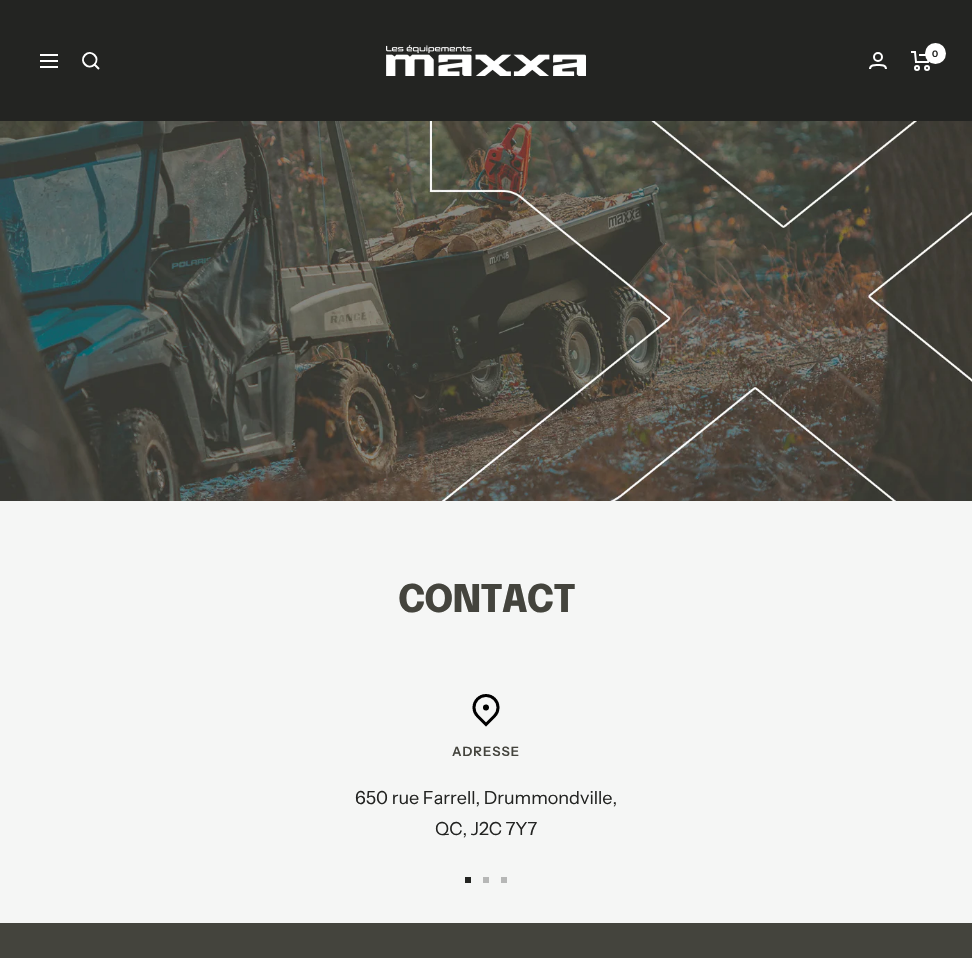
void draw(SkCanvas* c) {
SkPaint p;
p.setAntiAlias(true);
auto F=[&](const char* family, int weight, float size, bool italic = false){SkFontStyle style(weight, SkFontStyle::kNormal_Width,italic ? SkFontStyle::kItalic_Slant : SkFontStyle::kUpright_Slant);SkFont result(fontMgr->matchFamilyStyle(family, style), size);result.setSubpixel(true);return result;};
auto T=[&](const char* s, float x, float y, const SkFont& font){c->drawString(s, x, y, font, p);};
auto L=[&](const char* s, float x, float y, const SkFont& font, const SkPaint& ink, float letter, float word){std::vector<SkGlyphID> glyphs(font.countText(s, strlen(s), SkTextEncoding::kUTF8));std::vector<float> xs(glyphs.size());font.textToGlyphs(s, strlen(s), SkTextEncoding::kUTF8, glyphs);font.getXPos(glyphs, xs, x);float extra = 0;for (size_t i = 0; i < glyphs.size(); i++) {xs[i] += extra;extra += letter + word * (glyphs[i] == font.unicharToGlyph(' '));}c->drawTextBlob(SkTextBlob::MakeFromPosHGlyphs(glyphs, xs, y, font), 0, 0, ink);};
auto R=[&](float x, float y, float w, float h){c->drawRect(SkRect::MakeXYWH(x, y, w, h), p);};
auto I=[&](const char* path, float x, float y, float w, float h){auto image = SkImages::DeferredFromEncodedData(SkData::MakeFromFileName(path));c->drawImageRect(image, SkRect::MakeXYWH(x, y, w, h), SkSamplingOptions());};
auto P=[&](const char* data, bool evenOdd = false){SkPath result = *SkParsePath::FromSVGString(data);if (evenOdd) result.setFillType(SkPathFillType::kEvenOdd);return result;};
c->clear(0xfff5f6f5);
p.setColor(0xff232422);
R(0,0,972,121);
p.setStroke(true);
p.setStrokeWidth(2);
p.setColor(0xffffffff);
c->drawPath(P("M40 55h18m-18 12h18zm0-6h18zm54.5 3.5c6-6.5-3-15.5-9.5-9.5c-6 6.5 3 15.5 9.5 9.5zm0 0l4.5 4.5"),p);
I("1.png",386,45,200,31);
c->drawCircle(878,57,4,p);
c->drawPath(P("M870 69c0-4.5 5-4 8-4c3 0 8-.5 8 4m25-17h4l1 10h12l2-7h-11"),p);
p.setStroke(false);
c->drawCircle(935.5,53.5,10.5,p);
auto f1 = F("Instrument Sans",600,9);
p.setColor(0xff232422);
T("0",932,57,f1);
p.setStroke(true);
p.setColor(0xffffffff);
c->drawCircle(917,68,2,p);
c->drawCircle(927,68,2,p);
I("2.png",0,121,972,380);
auto f2 = F("Epilogue",800,38);
p.setStroke(false);
p.setColor(0xff44443d);
L("CONTACT",398,612,f2,p,-1,0);
I("3.png",472,694,28,33);
auto f3 = F("Instrument Sans",600,13);
L("ADRESSE",452,756,f3,p,1,0);
auto f4 = F("Instrument Sans",400,18);
p.setColor(0xff232422);
T("650 rue Farrell, Drummondville,",355,804,f4);
T("QC, J2C 7Y7",435,835,f4);
R(465,877,6,6);
p.setColor(0xffb6b7b6);
R(483,877,6,6);
R(501,877,6,6);
p.setColor(0xff44443d);
R(0,923,972,35);
}
